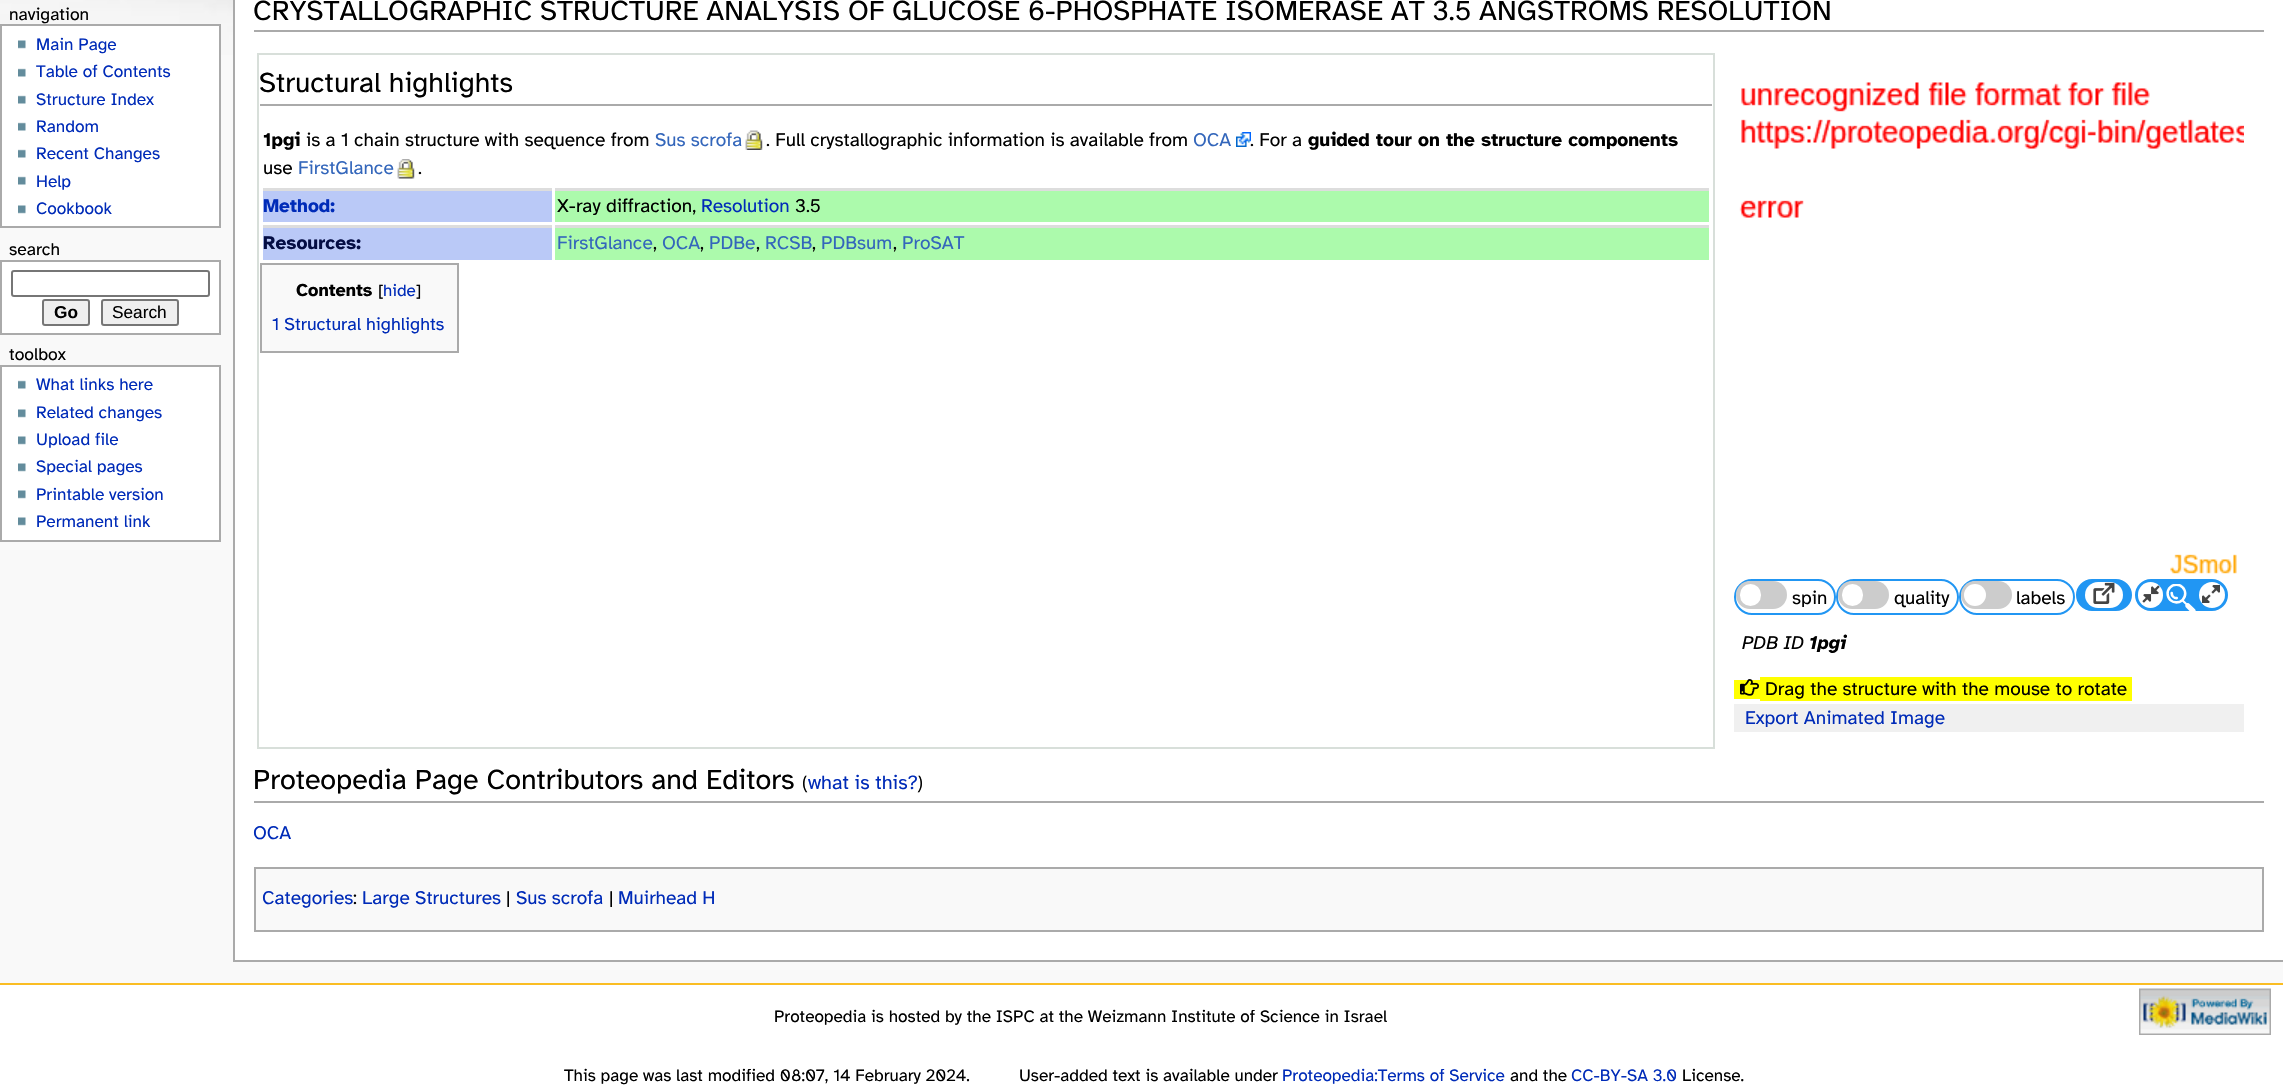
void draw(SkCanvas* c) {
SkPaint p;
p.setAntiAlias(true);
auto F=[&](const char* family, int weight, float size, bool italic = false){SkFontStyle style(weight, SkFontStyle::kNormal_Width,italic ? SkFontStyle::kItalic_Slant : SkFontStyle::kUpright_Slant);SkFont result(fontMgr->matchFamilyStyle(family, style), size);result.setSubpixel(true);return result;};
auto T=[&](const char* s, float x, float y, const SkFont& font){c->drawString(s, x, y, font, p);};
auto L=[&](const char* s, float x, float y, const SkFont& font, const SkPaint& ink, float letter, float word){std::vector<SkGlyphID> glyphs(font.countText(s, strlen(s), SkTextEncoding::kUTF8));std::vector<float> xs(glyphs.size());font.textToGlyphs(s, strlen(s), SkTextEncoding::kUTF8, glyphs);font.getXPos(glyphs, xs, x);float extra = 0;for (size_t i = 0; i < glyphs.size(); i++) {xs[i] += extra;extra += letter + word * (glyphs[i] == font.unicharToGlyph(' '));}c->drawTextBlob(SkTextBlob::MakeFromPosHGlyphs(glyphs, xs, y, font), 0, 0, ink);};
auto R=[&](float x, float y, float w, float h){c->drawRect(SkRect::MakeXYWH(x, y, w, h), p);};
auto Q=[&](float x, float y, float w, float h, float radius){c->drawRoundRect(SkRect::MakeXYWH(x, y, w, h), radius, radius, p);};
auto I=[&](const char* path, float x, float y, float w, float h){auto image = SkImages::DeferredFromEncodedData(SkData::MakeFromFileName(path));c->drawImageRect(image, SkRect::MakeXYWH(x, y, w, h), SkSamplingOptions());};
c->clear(0xfff9f9f9);
I("1.png",0,0,233,55);
auto f1 = F("Atkinson Hyperlegible",400,17.5);
p.setColor(0xff000000);
T("navigation",9,20,f1);
p.setColor(0xffffffff);
c->drawRect(SkRect::MakeXYWH(1,25,219,202),p);
p.setStroke(true);
p.setStrokeWidth(2);
p.setColor(0xffaaaaaa);
c->drawRect(SkRect::MakeXYWH(1,25,219,202),p);
I("2.png",18,40,8,9);
auto f2 = F("Atkinson Hyperlegible",400,17.25);
p.setStroke(false);
p.setColor(0xff002bb8);
T("Main Page",36,50,f2);
I("3.png",18,68,8,9);
T("Table of Contents",36,77,f2);
I("3.png",18,95,8,9);
T("Structure Index",36,105,f2);
I("3.png",18,122,8,9);
T("Random",36,132,f2);
I("3.png",18,149,8,9);
T("Recent Changes",36,159,f2);
I("3.png",18,176,8,9);
T("Help",36,187,f2);
I("2.png",18,205,8,9);
T("Cookbook",36,214,f2);
p.setColor(0xff000000);
T("search",9,255,f1);
p.setColor(0xffffffff);
c->drawRect(SkRect::MakeXYWH(1,261,219,73),p);
p.setStroke(true);
p.setColor(0xffaaaaaa);
c->drawRect(SkRect::MakeXYWH(1,261,219,73),p);
p.setColor(0xff767676);
c->drawRoundRect(SkRect::MakeXYWH(12,271,197,25),2,2,p);
p.setStroke(false);
p.setColor(0xffefefef);
c->drawRoundRect(SkRect::MakeXYWH(43,300,46,25),2,2,p);
p.setStroke(true);
p.setColor(0xff767676);
c->drawRoundRect(SkRect::MakeXYWH(43,300,46,25),2,2,p);
auto f3 = F("Liberation Sans",700,17.25);
p.setStroke(false);
p.setColor(0xff000000);
T("Go",54,318,f3);
p.setColor(0xffefefef);
c->drawRoundRect(SkRect::MakeXYWH(102,300,76,25),2,2,p);
p.setStroke(true);
p.setColor(0xff767676);
c->drawRoundRect(SkRect::MakeXYWH(102,300,76,25),2,2,p);
auto f4 = F("Liberation Sans",400,17.25);
p.setStroke(false);
p.setColor(0xff000000);
T("Search",112,318,f4);
T("toolbox",9,360,f1);
p.setColor(0xffffffff);
c->drawRect(SkRect::MakeXYWH(1,366,219,175),p);
p.setStroke(true);
p.setColor(0xffaaaaaa);
c->drawRect(SkRect::MakeXYWH(1,366,219,175),p);
I("3.png",18,380,8,9);
p.setStroke(false);
p.setColor(0xff002bb8);
T("What links here",36,390,f2);
I("2.png",18,409,8,9);
T("Related changes",36,418,f2);
I("2.png",18,436,8,9);
T("Upload file",36,445,f2);
I("2.png",18,463,8,9);
T("Special pages",36,472,f2);
I("2.png",18,490,8,9);
T("Printable version",36,500,f2);
I("2.png",18,517,8,9);
T("Permanent link",36,527,f2);
p.setColor(0xffffffff);
R(235,0,2048,960);
p.setColor(0xffaaaaaa);
R(233,960,2050,2);
R(233,0,2,962);
R(254,30,2010,2);
auto f5 = F("Atkinson Hyperlegible",400,28.58);
p.setColor(0xff000000);
L("CRYSTALLOGRAPHIC STRUCTURE ANALYSIS OF GLUCOSE 6-PHOSPHATE ISOMERASE AT 3.5 ANGSTROMS RESOLUTION",253,20,f5,p,0,-.25);
p.setStroke(true);
p.setColor(0xffd8dfda);
c->drawRect(SkRect::MakeXYWH(258,54,1456,694),p);
p.setStroke(false);
p.setColor(0xffaaaaaa);
R(260,104,1452,2);
p.setColor(0xff000000);
T("Structural highlights",259,92,f5);
auto f6 = F("Atkinson Hyperlegible",700,19.05);
T("1pgi",263,146,f6);
auto f7 = F("Atkinson Hyperlegible",400,19.05);
T("is a 1 chain structure with sequence from",306,146,f7);
p.setColor(0xff3366bb);
T("Sus scrofa",655,146,f7);
I("4.png",745,130,18,20);
p.setColor(0xff000000);
T(". Full crystallographic information is available from",766,146,f7);
p.setColor(0xff3366bb);
T("OCA",1193,146,f7);
I("5.png",1236,132,15,15);
p.setColor(0xff000000);
T(". For a",1250,146,f7);
T("guided tour on the structure components",1308,146,f6);
T("use",263,174,f7);
p.setColor(0xff3366bb);
T("FirstGlance",298,174,f7);
I("6.png",397,159,18,20);
p.setColor(0xff000000);
T(".",418,174,f7);
p.setColor(0xffbac9f7);
R(263,191,289,31);
p.setColor(0xffdddddd);
R(263,188,289,3);
p.setColor(0xff002bb8);
T("Method:",263,212,f6);
p.setColor(0xffacfaac);
R(555,191,1154,31);
p.setColor(0xffdddddd);
R(555,188,1154,3);
p.setColor(0xff000000);
T("X-ray diffraction,",557,212,f7);
p.setColor(0xff002bb8);
T("Resolution",701,212,f7);
p.setColor(0xff000000);
T("3.5Å",795,212,f7);
p.setColor(0xffbac9f7);
R(263,228,289,32);
p.setColor(0xffdddddd);
R(263,225,289,3);
p.setColor(0xff040d44);
T("Resources:",263,249,f6);
p.setColor(0xffacfaac);
R(555,228,1154,32);
p.setColor(0xffdddddd);
R(555,225,1154,3);
p.setColor(0xff3366bb);
T("FirstGlance",557,249,f7);
p.setColor(0xff000000);
T(",",653,249,f7);
p.setColor(0xff3366bb);
T("OCA",662,249,f7);
p.setColor(0xff000000);
T(",",700,249,f7);
p.setColor(0xff3366bb);
T("PDBe",709,249,f7);
p.setColor(0xff000000);
T(",",756,249,f7);
p.setColor(0xff3366bb);
T("RCSB",765,249,f7);
p.setColor(0xff000000);
T(",",812,249,f7);
p.setColor(0xff3366bb);
T("PDBsum",821,249,f7);
p.setColor(0xff000000);
T(",",893,249,f7);
p.setColor(0xff3366bb);
T("ProSAT",902,249,f7);
p.setColor(0xfff9f9f9);
c->drawRect(SkRect::MakeXYWH(261,264,197,88),p);
p.setStroke(true);
p.setColor(0xffaaaaaa);
c->drawRect(SkRect::MakeXYWH(261,264,197,88),p);
auto f8 = F("Atkinson Hyperlegible",700,18);
p.setStroke(false);
p.setColor(0xff000000);
T("Contents",296,296,f8);
auto f9 = F("Atkinson Hyperlegible",400,17);
T("[",378,296,f9);
p.setColor(0xff002bb8);
T("hide",383,296,f9);
p.setColor(0xff000000);
T("]",416,296,f9);
auto f10 = F("Atkinson Hyperlegible",400,18);
p.setColor(0xff002bb8);
T("1 Structural highlights",272,330,f10);
I("7.png",1739,82,505,492);
p.setStroke(true);
p.setColor(0xff2196f3);
c->drawRoundRect(SkRect::MakeXYWH(1735,580,100,34),17,17,p);
p.setStroke(false);
p.setColor(0xffcccccc);
Q(1736,581,51,28,14);
p.setColor(0xffffffff);
Q(1740,584,21,22,10.5);
p.setColor(0xff000000);
T("spin",1792,604,f7);
p.setStroke(true);
p.setColor(0xff2196f3);
c->drawRoundRect(SkRect::MakeXYWH(1837,580,121,34),17,17,p);
p.setStroke(false);
p.setColor(0xffcccccc);
Q(1838,581,51,28,14);
p.setColor(0xffffffff);
Q(1842,584,21,22,10.5);
p.setColor(0xff000000);
T("quality",1894,604,f7);
p.setStroke(true);
p.setColor(0xff2196f3);
c->drawRoundRect(SkRect::MakeXYWH(1960,580,114,34),17,17,p);
p.setStroke(false);
p.setColor(0xffcccccc);
Q(1961,581,51,28,14);
p.setColor(0xffffffff);
c->drawCircle(1975,595,11,p);
p.setColor(0xff000000);
T("labels",2016,604,f7);
p.setColor(0xff2196f3);
c->drawRoundRect(SkRect::MakeXYWH(2077,580,54,30),15,15,p);
p.setStroke(true);
c->drawRoundRect(SkRect::MakeXYWH(2077,580,54,30),15,15,p);
p.setStroke(false);
p.setColor(0xffffffff);
Q(2085,582,38,26,13);
I("8.png",2093,582,22,22);
p.setColor(0xff2196f3);
c->drawRoundRect(SkRect::MakeXYWH(2136,580,91,30),15,15,p);
p.setStroke(true);
c->drawRoundRect(SkRect::MakeXYWH(2136,580,91,30),15,15,p);
p.setStroke(false);
p.setColor(0xffffffff);
Q(2138,582,25,26,12.5);
I("9.png",2142,585,18,18);
I("10.png",2166,584,30,27);
c->drawCircle(2212,595,13,p);
I("11.png",2202,585,18,18);
auto f11 = F("Atkinson Hyperlegible",400,19.05,true);
p.setColor(0xff000000);
T("PDB ID",1742,649,f11);
auto f12 = F("Atkinson Hyperlegible",700,19.05,true);
T("1pgi",1809,649,f12);
p.setColor(0xffffff00);
R(1734,680,26,19);
R(1760,677,372,24);
I("12.png",1740,679,19,17);
p.setColor(0xff000000);
T("Drag the structure with the mouse to rotate",1765,695,f7);
p.setColor(0xfff0f0f0);
R(1734,704,510,28);
p.setColor(0xff002bb8);
T("Export Animated Image",1745,724,f7);
p.setColor(0xffaaaaaa);
R(254,801,2010,2);
p.setColor(0xff000000);
T("Proteopedia Page Contributors and Editors",253,789,f5);
auto f13 = F("Atkinson Hyperlegible",400,20);
T("(",802,789,f13);
p.setColor(0xff002bb8);
T("what is this?",808,789,f13);
p.setColor(0xff000000);
T(")",917,789,f13);
p.setColor(0xff002bb8);
T("OCA",253,839,f7);
p.setColor(0xfff9f9f9);
c->drawRect(SkRect::MakeXYWH(255,868,2008,63),p);
p.setStroke(true);
p.setColor(0xffaaaaaa);
c->drawRect(SkRect::MakeXYWH(255,868,2008,63),p);
p.setStroke(false);
p.setColor(0xff002bb8);
T("Categories",262,904,f7);
p.setColor(0xff000000);
T(":",353,904,f7);
p.setColor(0xff002bb8);
T("Large Structures",362,904,f7);
p.setColor(0xff000000);
T("|",506,904,f7);
p.setColor(0xff002bb8);
T("Sus scrofa",516,904,f7);
p.setColor(0xff000000);
T("|",609,904,f7);
p.setColor(0xff002bb8);
T("Muirhead H",618,904,f7);
p.setColor(0xffffffff);
R(0,985,2283,106);
p.setColor(0xfffabd23);
R(0,983,2283,2);
auto f14 = F("Atkinson Hyperlegible",400,17.15);
p.setColor(0xff000000);
T("Proteopedia is hosted by the ISPC at the Weizmann Institute of Science in Israel",774,1022,f14);
T("This page was last modified 08:07, 14 February 2024.",564,1081,f14);
T("User-added text is available under",1019,1081,f14);
p.setColor(0xff002bb8);
T("Proteopedia:Terms of Service",1282,1081,f14);
p.setColor(0xff000000);
T("and the",1510,1081,f14);
p.setColor(0xff002bb8);
T("CC-BY-SA 3.0",1571,1081,f14);
p.setColor(0xff000000);
T("License.",1682,1081,f14);
I("13.png",2139,988,132,47);
}
